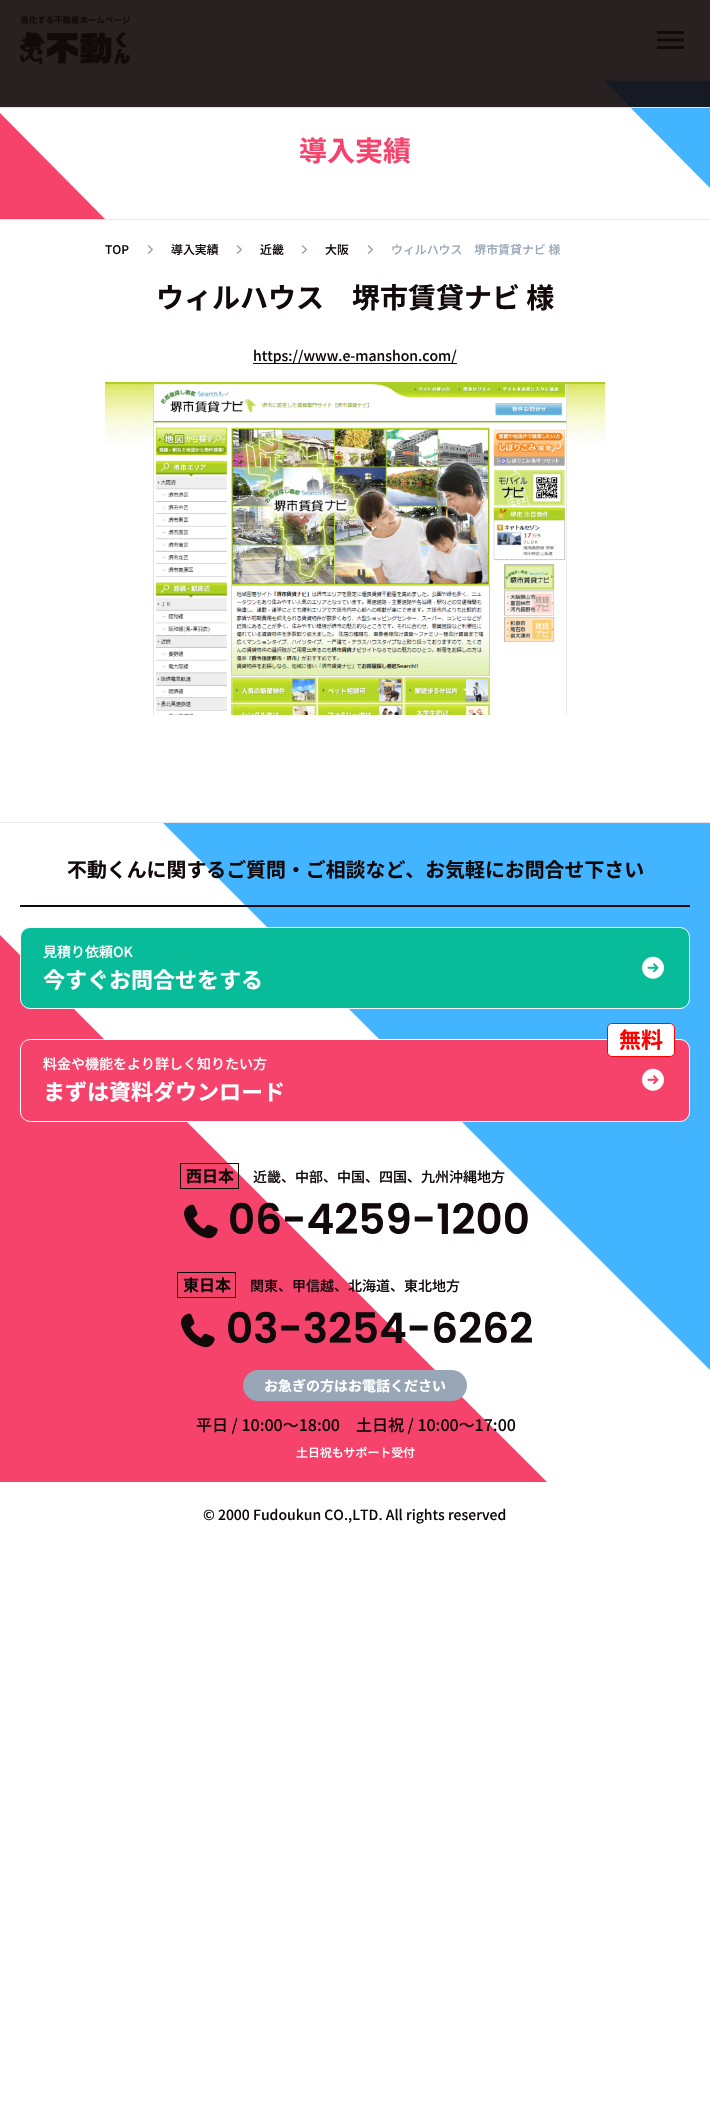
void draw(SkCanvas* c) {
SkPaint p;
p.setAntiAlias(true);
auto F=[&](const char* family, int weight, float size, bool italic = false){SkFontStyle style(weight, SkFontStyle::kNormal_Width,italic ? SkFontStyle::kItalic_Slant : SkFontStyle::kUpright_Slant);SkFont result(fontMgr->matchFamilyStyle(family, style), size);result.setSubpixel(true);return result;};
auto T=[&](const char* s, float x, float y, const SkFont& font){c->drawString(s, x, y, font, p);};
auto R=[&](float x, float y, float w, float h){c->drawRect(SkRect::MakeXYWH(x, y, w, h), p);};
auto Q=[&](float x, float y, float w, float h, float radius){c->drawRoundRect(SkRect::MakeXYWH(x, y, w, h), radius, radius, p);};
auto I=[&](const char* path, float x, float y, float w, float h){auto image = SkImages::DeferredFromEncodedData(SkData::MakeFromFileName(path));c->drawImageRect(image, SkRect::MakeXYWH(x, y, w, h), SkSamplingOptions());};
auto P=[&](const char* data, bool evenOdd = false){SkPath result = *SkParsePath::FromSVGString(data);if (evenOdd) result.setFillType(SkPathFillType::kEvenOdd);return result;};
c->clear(0xffffffff);
I("1.png",20,16,110,48);
p.setColor(0xff43b4ff);
c->drawPath(P("M710 188l-106-107h106z"),p);
p.setColor(0xffe6e8ee);
R(0,80,710,1);
p.setColor(0xe611090a);
R(0,0,710,107);
p.setColor(0xffe5e5e5);
R(0,107,710,1);
I("2.png",657,31,27,18);
p.setColor(0xfff5436c);
c->drawPath(P("M0 113l106 107h-106z"),p);
p.setColor(0xffe6e8ee);
R(0,219,710,1);
auto f1 = F("Noto Sans JP",700,28);
p.setColor(0xfff5436c);
T("導入実績",299,161,f1);
auto f2 = F("Noto Sans JP",500,11.9);
p.setColor(0xff11090a);
T("TOP",105,254,f2);
I("3.png",147,245,6,9);
T("導入実績",171,254,f2);
I("3.png",236,245,6,9);
T("近畿",260,254,f2);
I("3.png",301,245,6,9);
T("大阪",325,254,f2);
I("3.png",367,245,6,9);
p.setColor(0xff98a6b5);
T("ウィルハウス　堺市賃貸ナビ 様",391,254,f2);
p.setColor(0xff11090a);
T("ウィルハウス　堺市賃貸ナビ 様",156,308,f1);
R(253,363,204,1);
auto f3 = F("Noto Sans JP",500,14);
T("https://www.e-manshon.com/",253,361,f3);
I("4.png",105,382,500,333);
p.setColor(0xfff5436c);
c->drawPath(P("M0 935l547 547h-547z"),p);
p.setColor(0xff43b4ff);
c->drawPath(P("M710 1370l-547-547h547z"),p);
p.setColor(0xffe6e8ee);
R(0,822,710,1);
p.setColor(0xff11090a);
R(20,905,670,2);
auto f4 = F("Noto Sans JP",700,19.9);
T("不動くんに関するご質問・ご相談など、お気軽にお問合せ下さい",67,877,f4);
p.setColor(0xff08bc9a);
c->drawRoundRect(SkRect::MakeXYWH(20.5,927.5,669,81),9.5,9.5,p);
p.setStroke(true);
p.setStrokeWidth(1);
p.setColor(0xffffffff);
c->drawRoundRect(SkRect::MakeXYWH(20.5,927.5,669,81),9.5,9.5,p);
p.setStroke(false);
T("見積り依頼OK",43,957,f3);
auto f5 = F("Noto Sans JP",700,22);
T("今すぐお問合せをする",43,988,f5);
I("5.png",642,956,22,23);
p.setColor(0xfff5436c);
c->drawRoundRect(SkRect::MakeXYWH(20.5,1039.5,669,82),9.5,9.5,p);
p.setStroke(true);
p.setColor(0xffffffff);
c->drawRoundRect(SkRect::MakeXYWH(20.5,1039.5,669,82),9.5,9.5,p);
p.setStroke(false);
c->drawRoundRect(SkRect::MakeXYWH(607.5,1023.5,67,33),4.5,4.5,p);
p.setStroke(true);
p.setColor(0xffff0000);
c->drawRoundRect(SkRect::MakeXYWH(607.5,1023.5,67,33),4.5,4.5,p);
p.setStroke(false);
T("無料",619,1048,f5);
p.setColor(0xffffffff);
T("料金や機能をより詳しく知りたい方",43,1069,f3);
T("まずは資料ダウンロード",43,1100,f5);
I("6.png",642,1068,22,23);
p.setStroke(true);
p.setColor(0xff11090a);
c->drawRect(SkRect::MakeXYWH(180.5,1163.5,58,25),p);
auto f6 = F("Noto Sans JP",700,16);
p.setStroke(false);
T("西日本",186,1182,f6);
T("近畿、中部、中国、四国、九州沖縄地方",253,1182,f3);
I("7.png",184,1204,34,35);
auto f7 = F("Poppins",600,42);
T("06-4259-1200",228,1234,f7);
p.setStroke(true);
c->drawRect(SkRect::MakeXYWH(177.5,1272.5,58,25),p);
p.setStroke(false);
T("東日本",183,1291,f6);
T("関東、甲信越、北海道、東北地方",250,1291,f3);
I("7.png",181,1313,34,35);
T("03-3254-6262",226,1343,f7);
p.setColor(0xff98a6b5);
Q(243,1370,224,31,15.5);
auto f8 = F("Noto Sans JP",700,14);
p.setColor(0xffffffff);
T("お急ぎの方はお電話ください",264,1391,f8);
auto f9 = F("Noto Sans JP",500,16);
p.setColor(0xff11090a);
T("平日 / 10:00～18:00　土日祝 / 10:00～17:00",196,1431,f9);
p.setColor(0xffffffff);
T("土日祝もサポート受付",296,1457,f2);
p.setColor(0xff11090a);
T("© 2000 Fudoukun CO.,LTD. All rights reserved",203,1520,f3);
}
